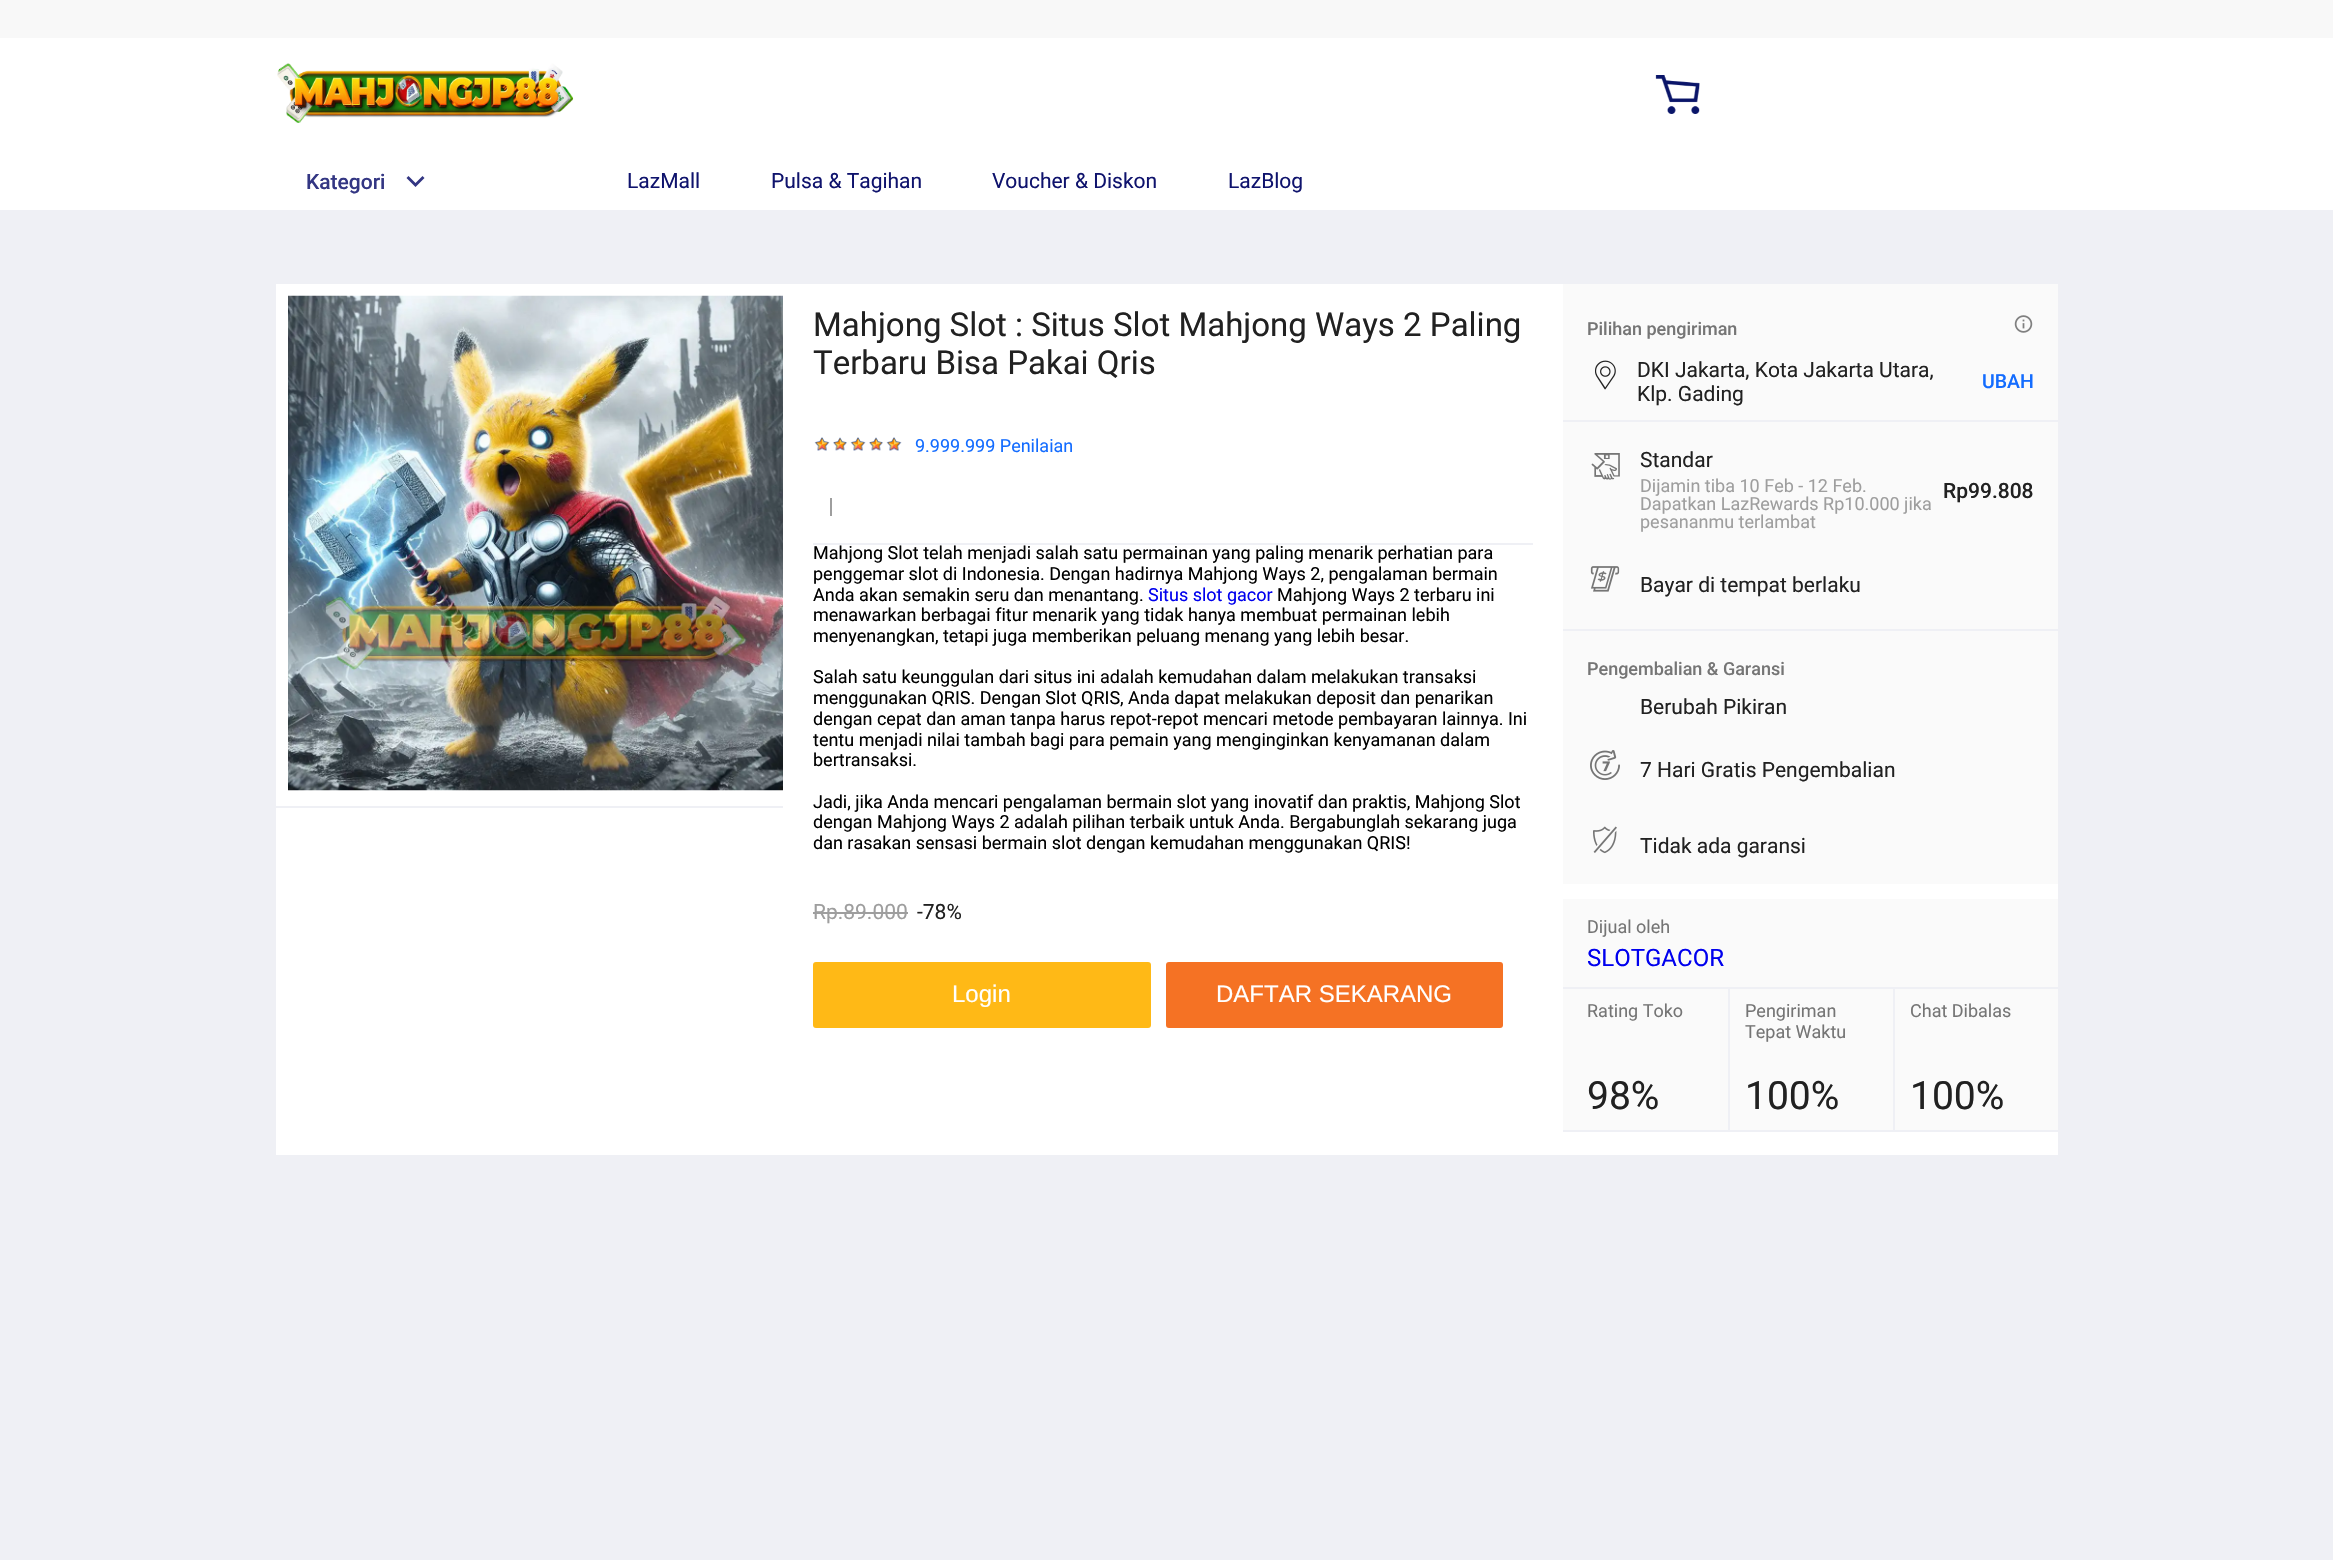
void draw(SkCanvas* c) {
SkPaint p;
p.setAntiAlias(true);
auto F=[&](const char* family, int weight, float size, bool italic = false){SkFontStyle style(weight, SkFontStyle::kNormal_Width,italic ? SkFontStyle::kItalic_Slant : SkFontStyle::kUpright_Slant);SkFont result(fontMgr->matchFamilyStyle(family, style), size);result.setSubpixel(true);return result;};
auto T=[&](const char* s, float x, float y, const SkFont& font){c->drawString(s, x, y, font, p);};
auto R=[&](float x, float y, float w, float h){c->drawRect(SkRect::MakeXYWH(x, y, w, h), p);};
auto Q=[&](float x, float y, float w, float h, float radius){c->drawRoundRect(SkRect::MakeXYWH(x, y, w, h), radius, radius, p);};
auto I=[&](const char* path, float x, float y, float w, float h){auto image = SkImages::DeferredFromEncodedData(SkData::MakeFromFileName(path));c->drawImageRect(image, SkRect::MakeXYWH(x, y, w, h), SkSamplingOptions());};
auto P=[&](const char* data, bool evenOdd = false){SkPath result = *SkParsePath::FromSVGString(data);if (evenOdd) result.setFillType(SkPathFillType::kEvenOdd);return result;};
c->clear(0xffeff0f5);
p.setColor(0xffffffff);
R(0,38,2333,172);
p.setColor(0xfff8f8f8);
R(0,0,2333,38);
I("1.png",277,63,297,60);
I("2.png",1655,75,45,39);
auto f1 = F("Roboto",500,21);
p.setColor(0xff333683);
T("Kategori",306,189,f1);
c->drawPath(P("M422.5 176l2 2l-9 9l-9-9l2-2l7 7z"),p);
auto f2 = F("Roboto",400,21);
p.setColor(0xff0f136d);
T("LazMall",627,188,f2);
T("Pulsa & Tagihan",771,188,f2);
T("Voucher & Diskon",992,188,f2);
T("LazBlog",1228,188,f2);
p.setColor(0xffffffff);
R(276,284,1782,871);
p.setColor(0xffeff0f5);
R(276,806,507,2);
I("3.png",288,295,495,496);
auto f3 = F("Roboto",400,33);
p.setColor(0xff212121);
T("Mahjong Slot : Situs Slot Mahjong Ways 2 Paling",813,336,f3);
T("Terbaru Bisa Pakai Qris",813,374,f3);
I("4.png",814,437,16,14);
I("5.png",833,437,14,14);
I("4.png",850,437,16,14);
I("5.png",869,437,14,14);
I("6.png",886,437,16,14);
auto f4 = F("Roboto",400,18);
p.setColor(0xff136cff);
T("9.999.999 Penilaian",915,452,f4);
p.setColor(0xffeff0f5);
R(813,543,720,2);
p.setColor(0xff9e9e9e);
R(830,498,2,18);
p.setColor(0xff000000);
T("Mahjong Slot telah menjadi salah satu permainan yang paling menarik perhatian para",813,559,f4);
T("penggemar slot di Indonesia. Dengan hadirnya Mahjong Ways 2, pengalaman bermain",813,580,f4);
T("Anda akan semakin seru dan menantang.",813,601,f4);
p.setColor(0xff0000ee);
T("Situs slot gacor",1148,601,f4);
p.setColor(0xff000000);
T("Mahjong Ways 2 terbaru ini",1277,601,f4);
T("menawarkan berbagai fitur menarik yang tidak hanya membuat permainan lebih",813,621,f4);
T("menyenangkan, tetapi juga memberikan peluang menang yang lebih besar.",813,642,f4);
T("Salah satu keunggulan dari situs ini adalah kemudahan dalam melakukan transaksi",813,683,f4);
T("menggunakan QRIS. Dengan Slot QRIS, Anda dapat melakukan deposit dan penarikan",813,704,f4);
T("dengan cepat dan aman tanpa harus repot-repot mencari metode pembayaran lainnya. Ini",813,725,f4);
T("tentu menjadi nilai tambah bagi para pemain yang menginginkan kenyamanan dalam",813,746,f4);
T("bertransaksi.",813,766,f4);
T("Jadi, jika Anda mencari pengalaman bermain slot yang inovatif dan praktis, Mahjong Slot",813,808,f4);
T("dengan Mahjong Ways 2 adalah pilihan terbaik untuk Anda. Bergabunglah sekarang juga",813,828,f4);
T("dan rasakan sensasi bermain slot dengan kemudahan menggunakan QRIS!",813,849,f4);
p.setColor(0xff9e9e9e);
T("Rp.89.000",813,919,f2);
R(813,912,95,2);
p.setColor(0xff212121);
T("-78%",917,919,f2);
p.setColor(0xffffb916);
Q(813,962,338,66,3);
auto f5 = F("Liberation Sans",400,24);
p.setColor(0xffffffff);
T("Login",952,1002,f5);
p.setColor(0xfff57224);
Q(1166,962,337,66,3);
p.setColor(0xffffffff);
T("DAFTAR SEKARANG",1216,1002,f5);
p.setColor(0xfffafafa);
R(1563,284,495,345);
auto f6 = F("Roboto",500,18);
p.setColor(0xff757575);
T("Pilihan pengiriman",1587,335,f6);
I("7.png",2014,315,19,18);
p.setColor(0xffeff0f5);
R(1563,420,495,2);
I("8.png",1595,360,21,30);
p.setColor(0xff212121);
T("DKI Jakarta, Kota Jakarta Utara,",1637,377,f2);
T("Klp. Gading",1637,401,f2);
auto f7 = F("Roboto",500,19.5);
p.setColor(0xff136cff);
T("UBAH",1982,388,f7);
I("9.png",1591,453,29,27);
p.setColor(0xff212121);
T("Standar",1640,467,f2);
p.setColor(0xff9e9e9e);
T("Dijamin tiba 10 Feb - 12 Feb.",1640,492,f4);
T("Dapatkan LazRewards Rp10.000 jika",1640,510,f4);
T("pesananmu terlambat",1640,528,f4);
p.setColor(0xff212121);
T("Rp99.808",1943,498,f1);
I("10.png",1590,566,30,26);
T("Bayar di tempat berlaku",1640,592,f2);
p.setColor(0xfffafafa);
R(1563,631,495,253);
p.setColor(0xffeff0f5);
R(1563,629,495,2);
p.setColor(0xff757575);
T("Pengembalian & Garansi",1587,675,f6);
p.setColor(0xff212121);
T("Berubah Pikiran",1640,714,f2);
I("11.png",1590,750,30,30);
T("7 Hari Gratis Pengembalian",1640,777,f2);
I("12.png",1593,826,24,28);
T("Tidak ada garansi",1640,853,f2);
p.setColor(0xfffafafa);
R(1563,899,495,231);
p.setColor(0xff757575);
T("Dijual oleh",1587,933,f4);
auto f8 = F("Roboto",400,24);
p.setColor(0xff0000ee);
T("SLOTGACOR",1587,966,f8);
p.setColor(0xffeff0f5);
R(1563,987,495,2);
p.setColor(0xff757575);
T("Rating Toko",1587,1017,f4);
auto f9 = F("Roboto",400,39);
p.setColor(0xff212121);
T("98%",1587,1109,f9);
p.setColor(0xffeff0f5);
R(1728,989,2,141);
p.setColor(0xff757575);
T("Pengiriman",1745,1017,f4);
T("Tepat Waktu",1745,1038,f4);
p.setColor(0xff212121);
T("100%",1745,1109,f9);
p.setColor(0xffeff0f5);
R(1893,989,2,141);
p.setColor(0xff757575);
T("Chat Dibalas",1910,1017,f4);
p.setColor(0xff212121);
T("100%",1910,1109,f9);
p.setColor(0xffeff0f5);
R(1563,1130,495,2);
}
